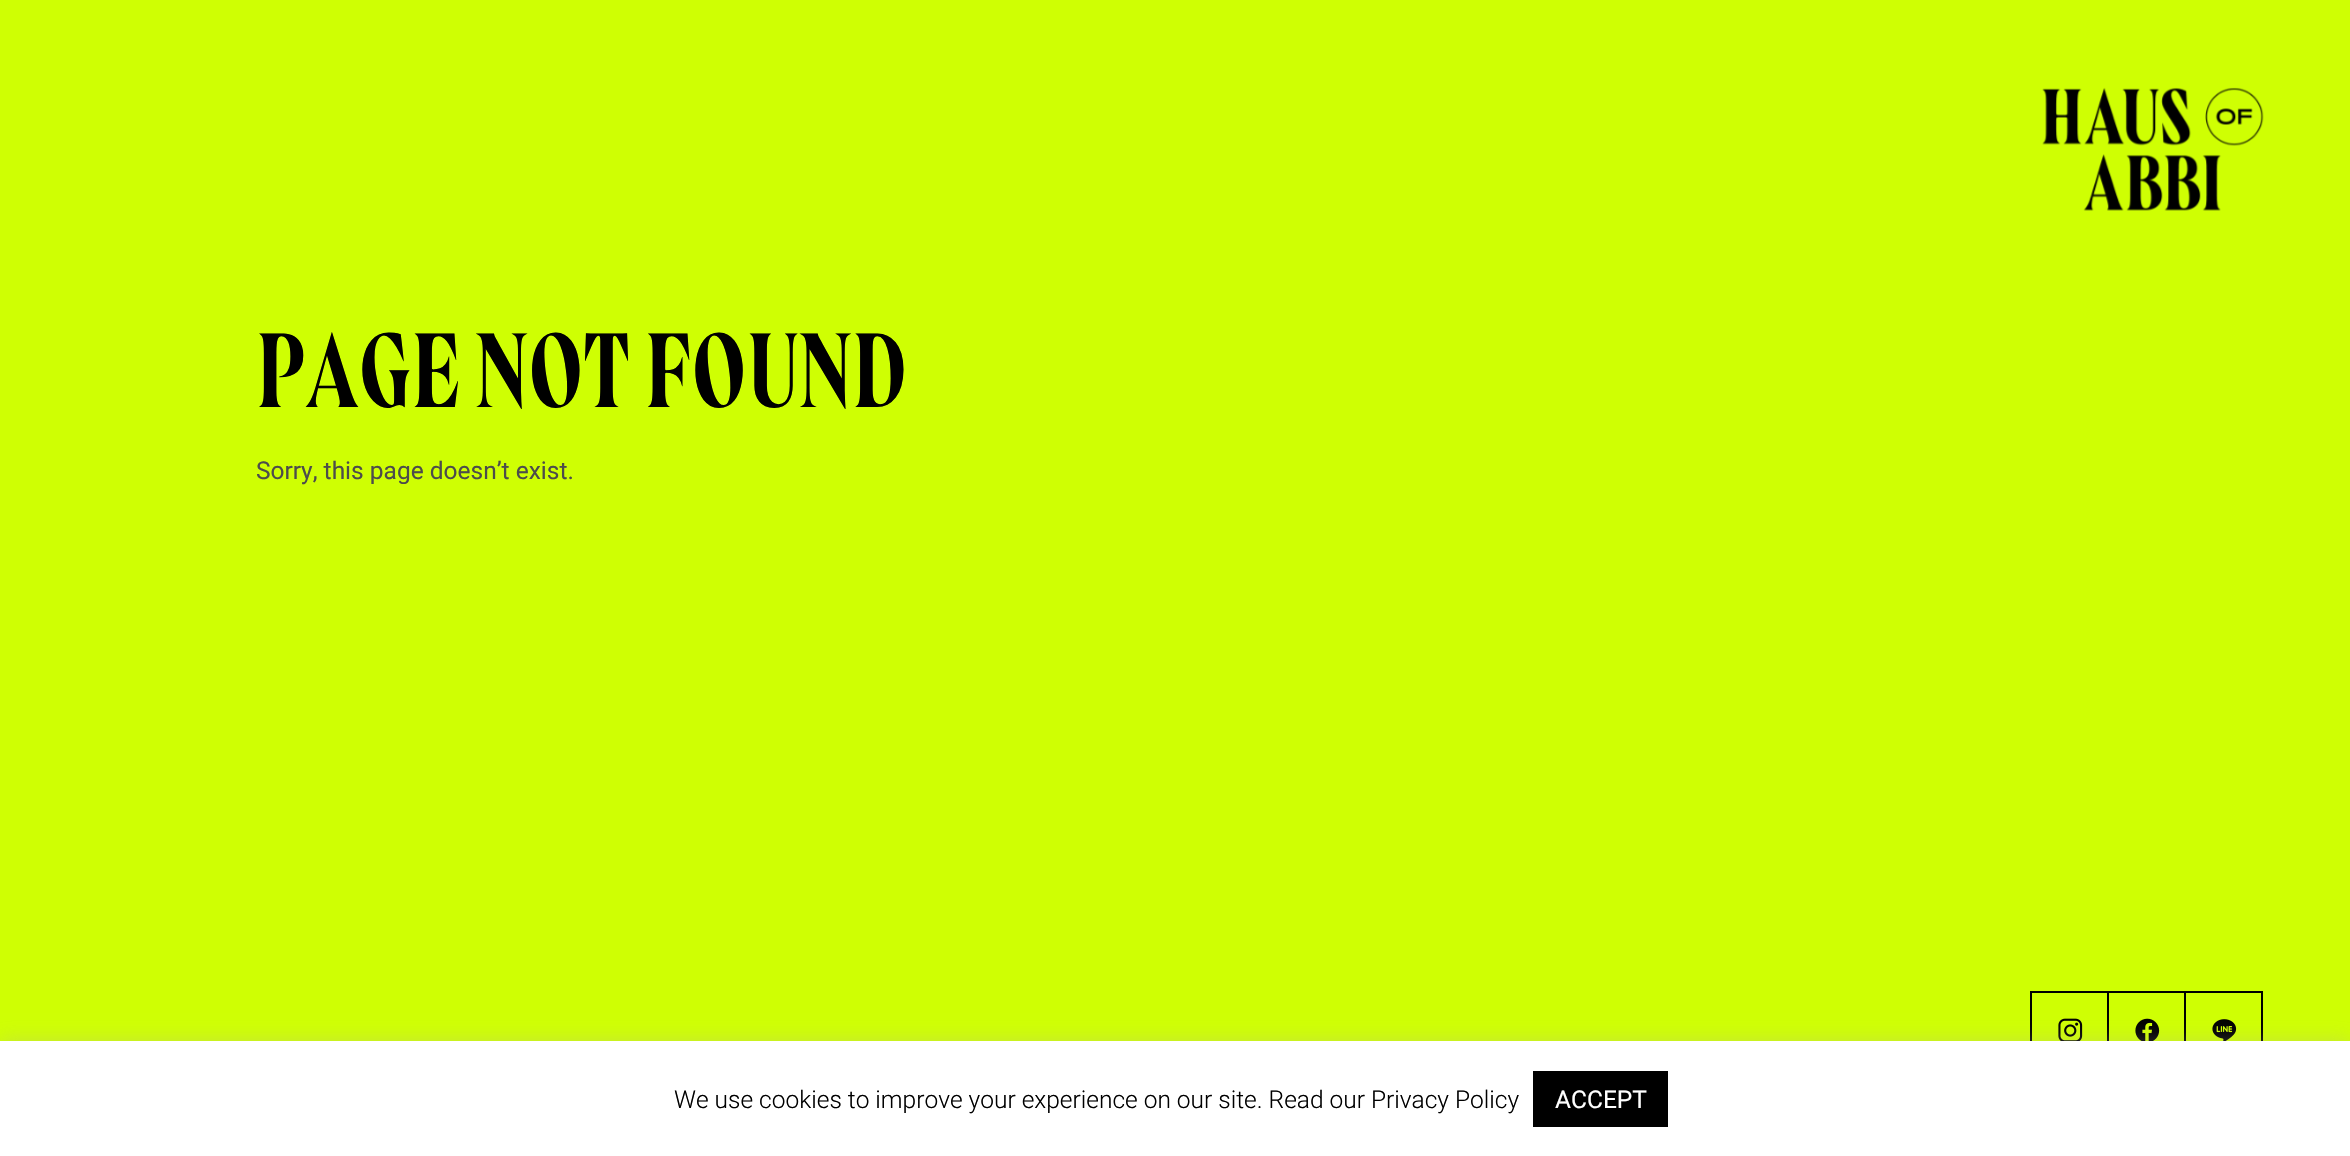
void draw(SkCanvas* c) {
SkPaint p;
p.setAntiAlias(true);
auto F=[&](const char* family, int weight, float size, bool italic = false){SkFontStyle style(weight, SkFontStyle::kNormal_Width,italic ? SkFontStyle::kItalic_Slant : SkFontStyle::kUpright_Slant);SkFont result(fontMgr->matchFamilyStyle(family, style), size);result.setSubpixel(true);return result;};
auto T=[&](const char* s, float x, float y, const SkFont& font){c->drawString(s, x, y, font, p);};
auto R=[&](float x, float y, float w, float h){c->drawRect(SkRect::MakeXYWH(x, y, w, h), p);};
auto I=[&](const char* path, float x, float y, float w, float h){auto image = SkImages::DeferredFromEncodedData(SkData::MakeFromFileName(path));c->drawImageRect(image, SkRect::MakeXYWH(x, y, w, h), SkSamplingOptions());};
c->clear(0xffcfff03);
I("1.png",2042,87,222,124);
auto f1 = F("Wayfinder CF",300,105);
p.setColor(0xff000000);
T("PAGE NOT FOUND",256,407,f1);
auto f2 = F("Roboto",400,24.5);
p.setColor(0xff4c4c4c);
T("Sorry, this page doesn’t exist.",256,479,f2);
p.setStroke(true);
p.setStrokeWidth(2);
p.setColor(0xff000000);
c->drawRect(SkRect::MakeXYWH(2031,992,77,76),p);
I("2.png",2058,1018,25,23);
c->drawRect(SkRect::MakeXYWH(2108,992,77,76),p);
I("3.png",2135,1018,25,23);
c->drawRect(SkRect::MakeXYWH(2185,992,77,76),p);
I("4.png",2212,1019,25,22);
p.setStroke(false);
p.setColor(0x4dacabab);
p.setMaskFilter(SkMaskFilter::MakeBlur(kNormal_SkBlurStyle, 9));
c->drawRect(SkRect::MakeXYWH(0,1040,2350,115),p);
p.setMaskFilter(nullptr);
p.setColor(0xffffffff);
R(0,1041,2350,115);
auto f3 = F("Roboto",300,24.5);
p.setColor(0xff000000);
T("We use cookies to improve your experience on our site. Read our Privacy Policy",674,1108,f3);
R(1533,1071,135,56);
p.setColor(0xffffffff);
T("ACCEPT",1555,1108,f2);
}
